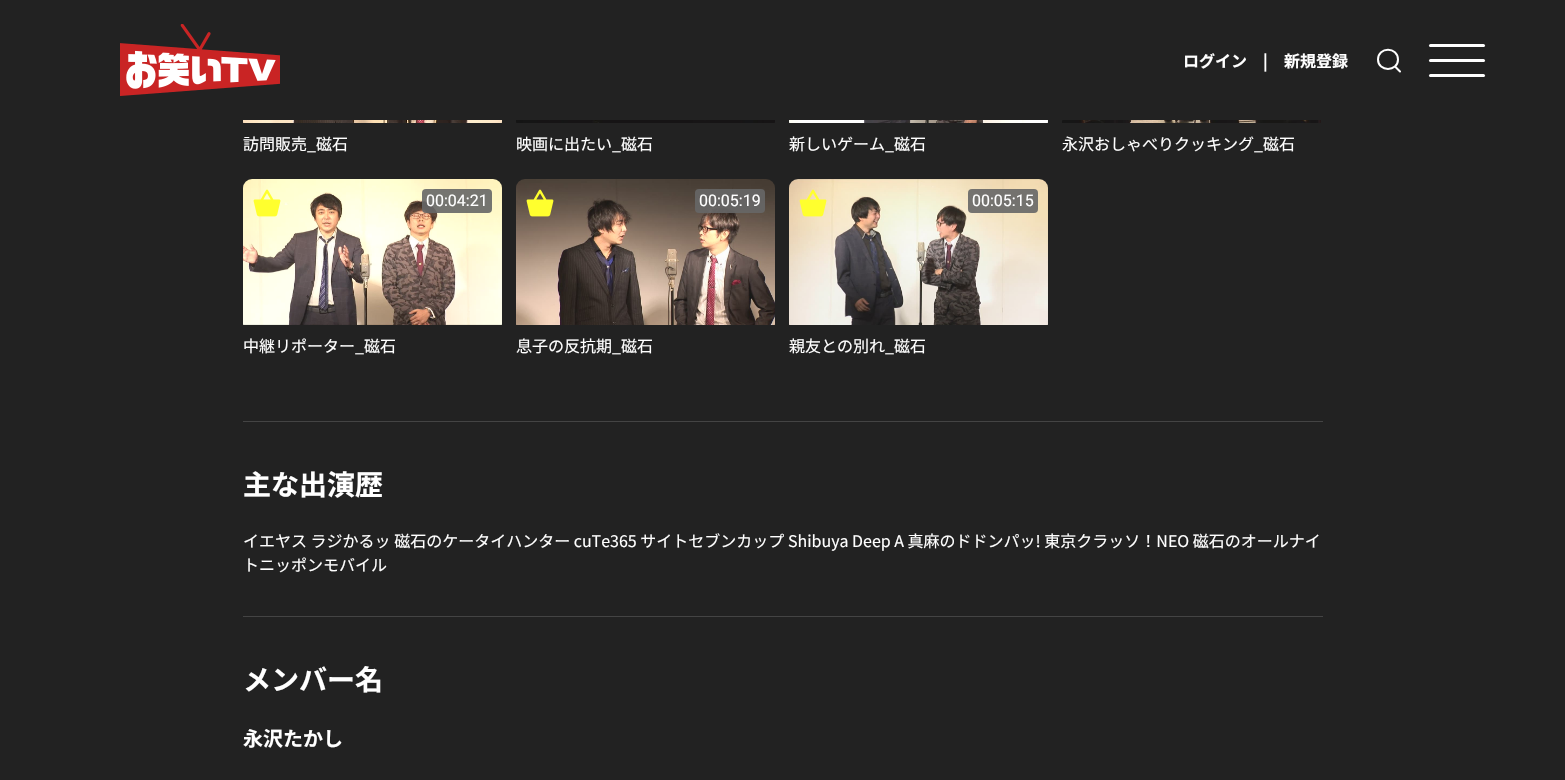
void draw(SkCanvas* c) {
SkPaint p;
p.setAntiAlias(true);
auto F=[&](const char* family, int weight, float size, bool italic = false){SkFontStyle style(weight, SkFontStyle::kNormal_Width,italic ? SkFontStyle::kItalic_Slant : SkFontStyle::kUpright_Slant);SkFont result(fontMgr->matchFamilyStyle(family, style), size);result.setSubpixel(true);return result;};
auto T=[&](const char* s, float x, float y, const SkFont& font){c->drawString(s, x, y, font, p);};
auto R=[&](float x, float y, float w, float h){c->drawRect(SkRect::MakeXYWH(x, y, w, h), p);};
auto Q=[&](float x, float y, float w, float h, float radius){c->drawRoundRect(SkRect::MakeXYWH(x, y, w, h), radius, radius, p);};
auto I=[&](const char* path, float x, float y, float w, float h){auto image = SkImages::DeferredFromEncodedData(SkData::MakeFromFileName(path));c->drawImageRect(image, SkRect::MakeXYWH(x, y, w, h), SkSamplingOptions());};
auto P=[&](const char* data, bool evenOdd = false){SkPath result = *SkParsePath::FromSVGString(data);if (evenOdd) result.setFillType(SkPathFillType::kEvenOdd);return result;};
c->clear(0xff222222);
I("1.png",120,24,160,72);
auto f1 = F("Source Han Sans",700,16);
p.setColor(0xffffffff);
T("ログイン",1183,67,f1);
T("|",1263,67,f1);
T("新規登録",1284,67,f1);
p.setStroke(true);
p.setStrokeWidth(2);
p.setStrokeCap(SkPaint::kRound_Cap);
p.setStrokeJoin(SkPaint::kRound_Join);
c->drawPath(P("M1398 59.5c0 12.5-20 12.5-20 0c0-13 20-13 20 0zm2 12l-5-5"),p);
p.setStroke(false);
Q(1429,44,56,3,1.5);
Q(1429,59,56,3,1.5);
Q(1429,74,56,3,1.5);
p.setColor(0xff444444);
R(243,421,1080,1);
I("2.png",243,120,259,3);
auto f2 = F("Source Han Sans",400,16);
p.setColor(0xffffffff);
T("訪問販売_磁石",243,150,f2);
I("3.png",516,120,259,3);
T("映画に出たい_磁石",516,150,f2);
I("4.png",789,120,259,3);
T("新しいゲーム_磁石",789,150,f2);
I("5.png",1062,120,259,3);
T("永沢おしゃべりクッキング_磁石",1062,150,f2);
I("6.png",243,179,259,146);
I("7.png",253,189,28,28);
p.setColor(0xe6666666);
Q(422,189,70,24,4);
auto f3 = F("Roboto",400,16);
p.setColor(0xffffffff);
T("00:04:21",426,206,f3);
T("中継リポーター_磁石",243,352,f2);
I("8.png",516,179,259,146);
I("9.png",526,189,28,28);
p.setColor(0xe6666666);
Q(695,189,70,24,4);
p.setColor(0xffffffff);
T("00:05:19",699,206,f3);
T("息子の反抗期_磁石",516,352,f2);
I("10.png",789,179,259,146);
I("11.png",799,189,28,28);
p.setColor(0xe6666666);
Q(968,189,70,24,4);
p.setColor(0xffffffff);
T("00:05:15",972,206,f3);
T("親友との別れ_磁石",789,352,f2);
p.setColor(0xff444444);
R(243,616,1080,1);
auto f4 = F("Source Han Sans",700,28);
p.setColor(0xffffffff);
T("主な出演歴",243,495,f4);
T("イエヤス ラジかるッ 磁石のケータイハンター cuTe365 サイトセブンカップ Shibuya Deep A 真麻のドドンパッ! 東京クラッソ！NEO 磁石のオールナイ",243,547,f2);
T("トニッポンモバイル",243,571,f2);
T("メンバー名",243,690,f4);
auto f5 = F("Source Han Sans",700,20);
T("永沢たかし",243,746,f5);
}
